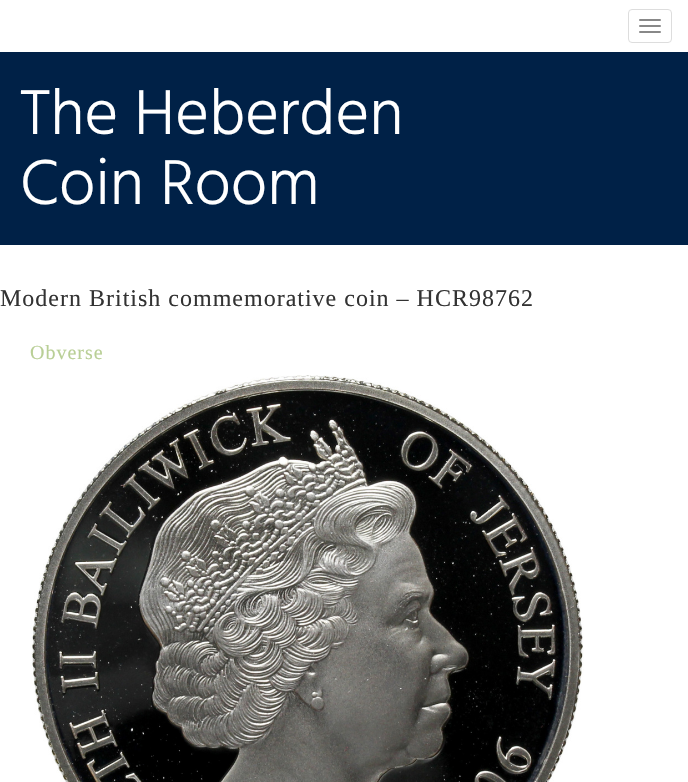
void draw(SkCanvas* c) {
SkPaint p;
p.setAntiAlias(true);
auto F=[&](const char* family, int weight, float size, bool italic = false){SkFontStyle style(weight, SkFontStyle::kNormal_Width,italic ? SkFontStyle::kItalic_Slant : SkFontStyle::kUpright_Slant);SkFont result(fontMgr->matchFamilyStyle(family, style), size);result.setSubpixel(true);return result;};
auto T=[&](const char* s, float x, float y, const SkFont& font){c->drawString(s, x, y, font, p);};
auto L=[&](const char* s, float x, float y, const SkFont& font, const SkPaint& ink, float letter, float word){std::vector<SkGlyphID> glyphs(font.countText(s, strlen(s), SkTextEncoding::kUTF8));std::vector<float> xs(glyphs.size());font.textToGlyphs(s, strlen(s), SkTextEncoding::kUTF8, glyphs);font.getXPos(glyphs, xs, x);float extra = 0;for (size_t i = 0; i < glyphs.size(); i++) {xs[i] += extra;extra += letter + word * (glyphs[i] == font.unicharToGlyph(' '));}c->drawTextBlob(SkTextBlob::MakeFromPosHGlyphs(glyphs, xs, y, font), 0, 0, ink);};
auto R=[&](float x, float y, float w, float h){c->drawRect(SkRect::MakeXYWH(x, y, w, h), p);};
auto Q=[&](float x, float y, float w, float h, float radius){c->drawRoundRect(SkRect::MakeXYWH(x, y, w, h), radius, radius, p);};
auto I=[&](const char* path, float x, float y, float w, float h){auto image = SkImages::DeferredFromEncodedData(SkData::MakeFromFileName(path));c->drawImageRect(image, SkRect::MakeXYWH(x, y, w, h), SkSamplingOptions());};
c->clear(0xffffffff);
p.setStroke(true);
p.setStrokeWidth(1);
p.setColor(0xffdddddd);
c->drawRoundRect(SkRect::MakeXYWH(628.5,9.5,43,33),3.5,3.5,p);
p.setStroke(false);
p.setColor(0xff888888);
Q(639,19,22,2,1);
Q(639,25,22,2,1);
Q(639,31,22,2,1);
p.setColor(0xff002147);
R(0,52,688,193);
auto f1 = F("Hind",300,65);
p.setColor(0xffffffff);
T("The Heberden",20,134,f1);
T("Coin Room",20,204,f1);
auto f2 = F("Liberation Serif",400,24);
p.setColor(0xff333333);
L("Modern British commemorative coin – HCR98762",0,306,f2,p,1,0);
auto f3 = F("Liberation Serif",400,20);
p.setColor(0xffb9cf96);
L("Obverse",30,359,f3,p,1,0);
I("1.png",30,375,554,407);
}
